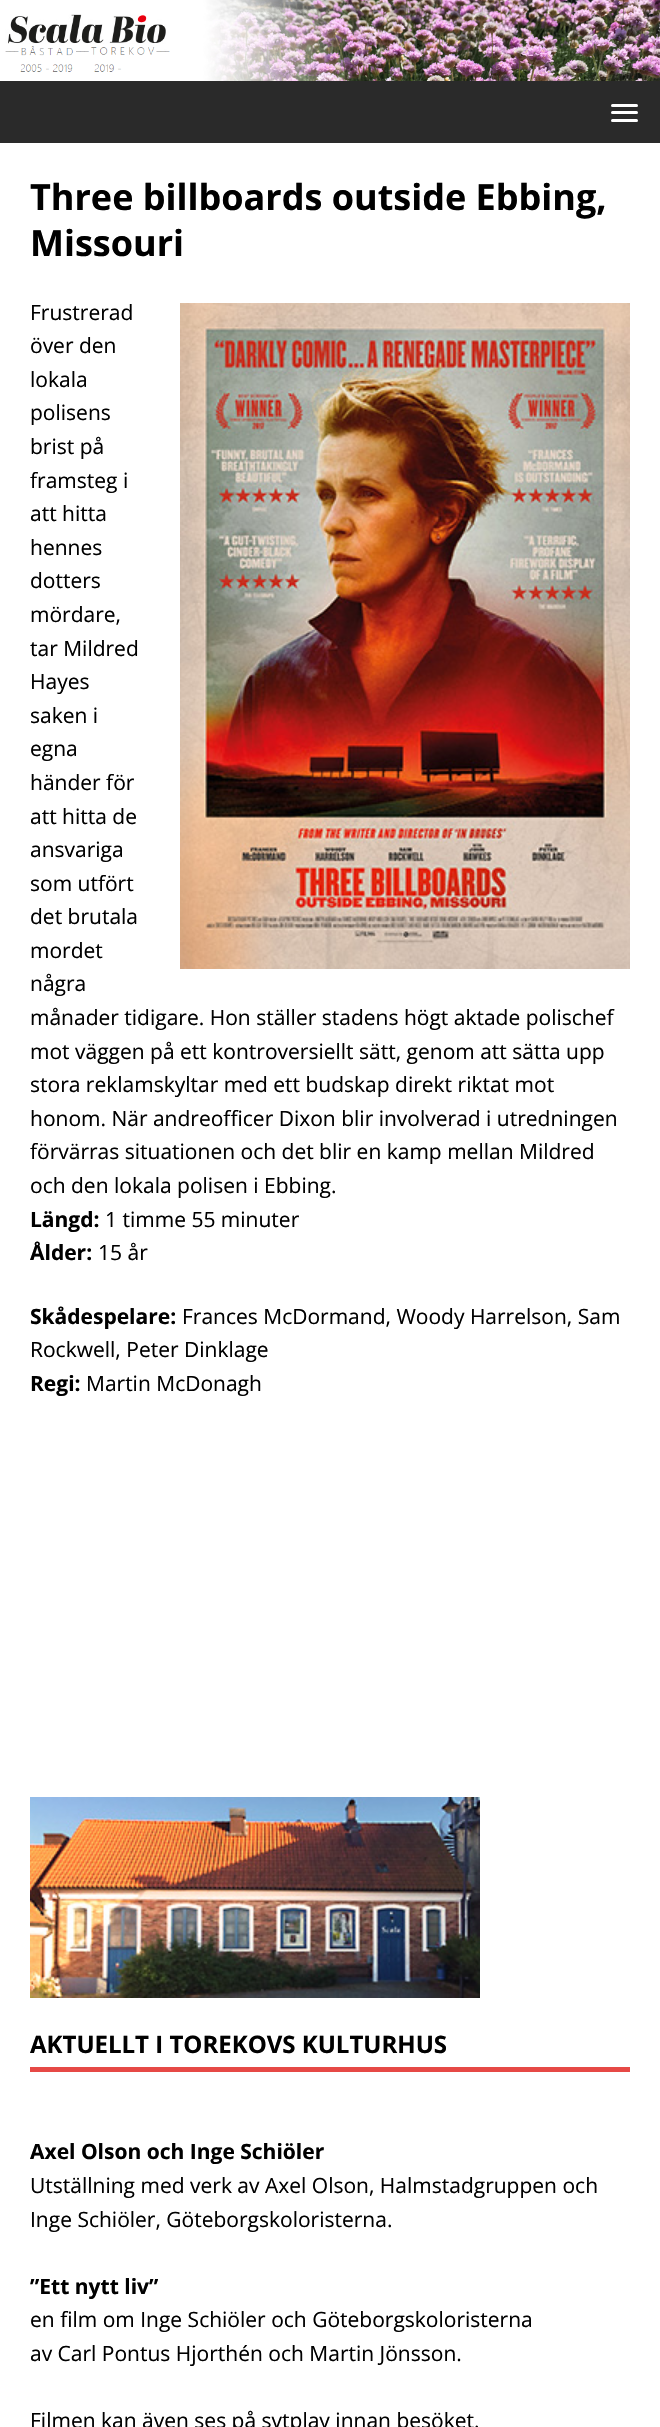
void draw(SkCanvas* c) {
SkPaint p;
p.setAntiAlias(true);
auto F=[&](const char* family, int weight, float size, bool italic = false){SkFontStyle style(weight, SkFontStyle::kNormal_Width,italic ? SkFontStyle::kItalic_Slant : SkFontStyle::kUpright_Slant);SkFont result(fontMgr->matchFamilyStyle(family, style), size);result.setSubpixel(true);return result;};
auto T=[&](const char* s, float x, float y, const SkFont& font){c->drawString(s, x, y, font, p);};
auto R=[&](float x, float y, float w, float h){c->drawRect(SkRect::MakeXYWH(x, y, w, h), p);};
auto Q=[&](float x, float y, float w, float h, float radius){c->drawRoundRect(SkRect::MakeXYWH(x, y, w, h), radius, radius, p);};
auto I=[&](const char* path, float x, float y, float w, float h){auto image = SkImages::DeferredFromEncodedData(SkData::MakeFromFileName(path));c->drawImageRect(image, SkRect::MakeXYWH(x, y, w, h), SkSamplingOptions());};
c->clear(0xffffffff);
I("1.png",5,0,655,81);
p.setColor(0xff2a2a2a);
R(0,81,660,62);
p.setColor(0xffffffff);
Q(611,104,27,3,1.5);
Q(611,111,27,3,1.5);
Q(611,119,27,3,1.5);
auto f1 = F("Open Sans",700,36);
p.setColor(0xff000000);
T("Three billboards outside Ebbing,",30,210,f1);
T("Missouri",30,256,f1);
auto f2 = F("Open Sans",400,21);
T("Frustrerad",30,320,f2);
I("2.png",180,303,450,666);
T("över den",30,353,f2);
T("lokala",30,387,f2);
T("polisens",30,420,f2);
T("brist på",30,454,f2);
T("framsteg i",30,488,f2);
T("att hitta",30,521,f2);
T("hennes",30,555,f2);
T("dotters",30,588,f2);
T("mördare,",30,622,f2);
T("tar Mildred",30,656,f2);
T("Hayes",30,689,f2);
T("saken i",30,723,f2);
T("egna",30,756,f2);
T("händer för",30,790,f2);
T("att hitta de",30,824,f2);
T("ansvariga",30,857,f2);
T("som utfört",30,891,f2);
T("det brutala",30,924,f2);
T("mordet",30,958,f2);
T("några",30,991,f2);
T("månader tidigare. Hon ställer stadens högt aktade polischef",30,1025,f2);
T("mot väggen på ett kontroversiellt sätt, genom att sätta upp",30,1059,f2);
T("stora reklamskyltar med ett budskap direkt riktat mot",30,1092,f2);
T("honom. När andreofficer Dixon blir involverad i utredningen",30,1126,f2);
T("förvärras situationen och det blir en kamp mellan Mildred",30,1159,f2);
T("och den lokala polisen i Ebbing.",30,1193,f2);
auto f3 = F("Open Sans",700,21);
T("Längd:",30,1227,f3);
T("1 timme 55 minuter",105,1227,f2);
T("Ålder:",30,1260,f3);
T("15 år",98,1260,f2);
T("Skådespelare:",30,1324,f3);
T("Frances McDormand, Woody Harrelson, Sam",182,1324,f2);
T("Rockwell, Peter Dinklage",30,1357,f2);
T("Regi:",30,1391,f3);
T("Martin McDonagh",86,1391,f2);
I("3.png",30,1797,450,201);
p.setColor(0xffe64946);
R(30,2067,600,5);
auto f4 = F("Open Sans",700,24);
p.setColor(0xff000000);
T("AKTUELLT I TOREKOVS KULTURHUS",30,2053,f4);
T("Axel Olson och Inge Schiöler",30,2159,f3);
T("Utställning med verk av Axel Olson, Halmstadgruppen och",30,2193,f2);
T("Inge Schiöler, Göteborgskoloristerna.",30,2227,f2);
T("”Ett nytt liv”",30,2294,f3);
T("en film om Inge Schiöler och Göteborgskoloristerna",30,2327,f2);
T("av Carl Pontus Hjorthén och Martin Jönsson.",30,2361,f2);
T("Filmen kan även ses på svtplay innan besöket.",30,2428,f2);
}
